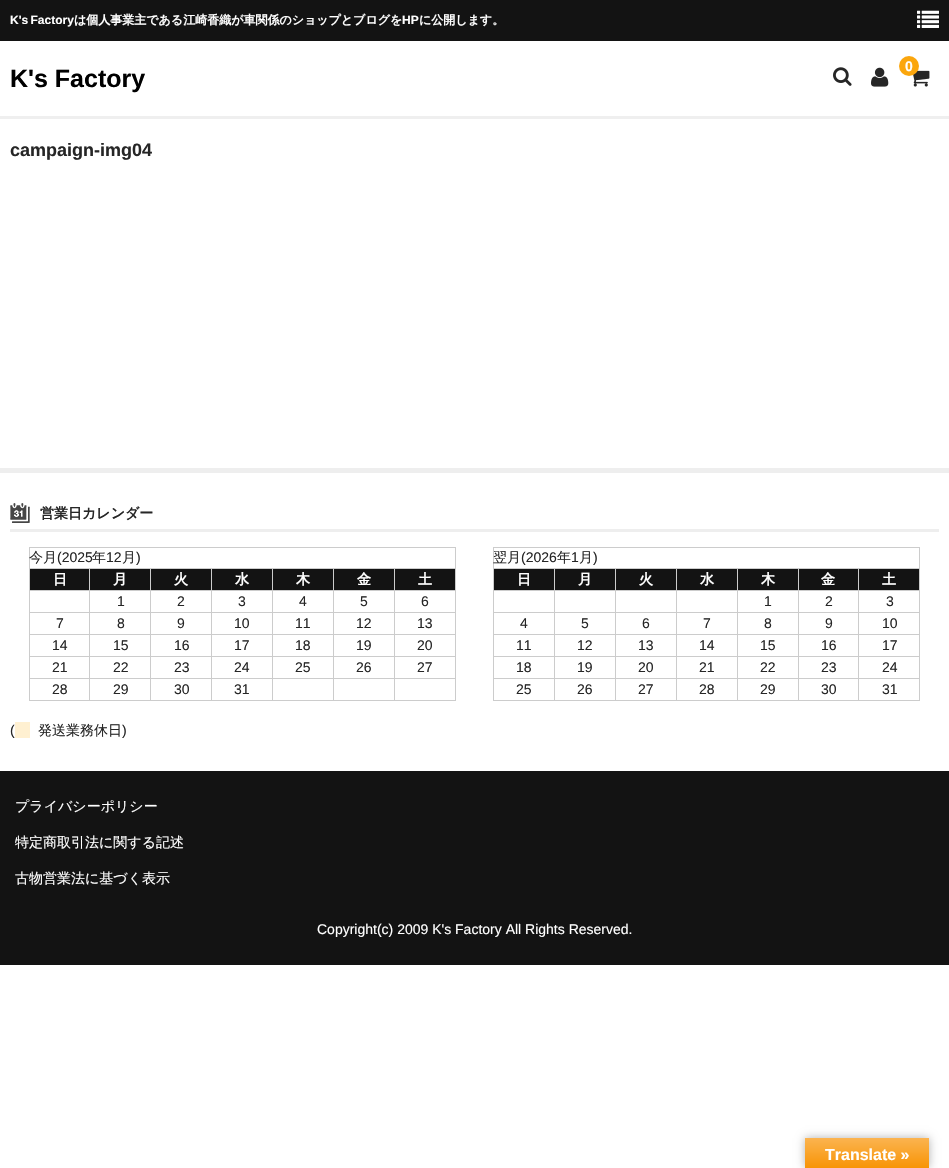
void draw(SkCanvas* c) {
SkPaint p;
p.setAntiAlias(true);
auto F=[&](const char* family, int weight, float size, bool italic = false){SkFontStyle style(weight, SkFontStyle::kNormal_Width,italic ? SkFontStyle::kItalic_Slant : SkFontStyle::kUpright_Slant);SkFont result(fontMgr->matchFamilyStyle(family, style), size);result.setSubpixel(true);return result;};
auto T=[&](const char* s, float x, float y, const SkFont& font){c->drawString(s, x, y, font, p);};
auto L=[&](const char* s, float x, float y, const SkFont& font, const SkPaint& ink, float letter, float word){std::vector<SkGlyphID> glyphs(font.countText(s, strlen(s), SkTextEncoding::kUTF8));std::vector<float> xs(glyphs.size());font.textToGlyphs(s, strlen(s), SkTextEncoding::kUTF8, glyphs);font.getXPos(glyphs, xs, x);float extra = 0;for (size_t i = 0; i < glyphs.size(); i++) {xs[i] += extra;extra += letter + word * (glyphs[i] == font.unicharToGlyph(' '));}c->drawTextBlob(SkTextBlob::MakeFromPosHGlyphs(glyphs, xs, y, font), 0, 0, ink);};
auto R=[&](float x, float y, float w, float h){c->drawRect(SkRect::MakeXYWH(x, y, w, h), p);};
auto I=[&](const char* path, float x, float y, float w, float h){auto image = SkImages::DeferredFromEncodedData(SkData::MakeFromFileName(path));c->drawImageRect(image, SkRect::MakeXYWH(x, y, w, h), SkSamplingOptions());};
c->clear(0xffffffff);
p.setColor(0xffefefef);
R(0,116,949,3);
p.setColor(0xff131313);
R(0,0,949,41);
auto f1 = F("Liberation Sans",700,12);
p.setColor(0xffffffff);
L("K's Factory",10,24,f1,p,0,-1);
auto f2 = F("WenQuanYi Zen Hei",700,12);
T("は個人事業主である江崎香織が車関係のショップとブログを",74,24,f2);
T("HP",402,24,f1);
T("に公開します。",419,24,f2);
I("1.png",833,67,19,19);
I("2.png",871,67,18,20);
I("3.png",913,70,17,17);
p.setColor(0xfffba60d);
c->drawCircle(909,66,10,p);
auto f3 = F("Liberation Sans",700,14);
p.setColor(0xffffffff);
T("0",905,71,f3);
auto f4 = F("Liberation Sans",700,25);
p.setColor(0xff000000);
T("K's Factory",10,87,f4);
I("4.png",917,10,22,18);
auto f5 = F("Liberation Sans",700,18);
p.setColor(0xff262626);
T("campaign-img04",10,156,f5);
p.setColor(0xffeeeeee);
R(0,468,949,5);
R(10,529,929,3);
I("5.png",10,503,20,20);
auto f6 = F("WenQuanYi Zen Hei",700,14);
p.setColor(0xff262626);
T("営業日カレンダー",40,518,f6);
p.setColor(0xffcccccc);
R(29,547,427,1);
R(455,547,1,154);
R(29,700,427,1);
R(29,547,1,154);
auto f7 = F("WenQuanYi Zen Hei",500,14);
p.setColor(0xff262626);
T("今月",29,562,f7);
auto f8 = F("Liberation Sans",400,14);
T("(2025",57,562,f8);
T("年",92,562,f7);
T("12",106,562,f8);
T("月",122,562,f7);
T(")",136,562,f8);
p.setColor(0xff131313);
R(30,569,59,21);
p.setColor(0xffcccccc);
R(394,568,62,1);
R(394,590,62,1);
R(394,612,62,1);
R(394,634,62,1);
R(394,656,62,1);
R(394,678,62,1);
R(394,678,1,23);
R(333,678,62,1);
R(394,656,1,23);
R(333,656,62,1);
R(394,634,1,23);
R(333,634,62,1);
R(394,612,1,23);
R(333,612,62,1);
R(394,590,1,23);
R(333,590,62,1);
R(394,568,1,23);
R(333,568,62,1);
R(333,678,1,23);
R(272,678,62,1);
R(333,656,1,23);
R(272,656,62,1);
R(333,634,1,23);
R(272,634,62,1);
R(333,612,1,23);
R(272,612,62,1);
R(333,590,1,23);
R(272,590,62,1);
R(333,568,1,23);
R(272,568,62,1);
R(272,678,1,23);
R(211,678,62,1);
R(272,656,1,23);
R(211,656,62,1);
R(272,634,1,23);
R(211,634,62,1);
R(272,612,1,23);
R(211,612,62,1);
R(272,590,1,23);
R(211,590,62,1);
R(272,568,1,23);
R(211,568,62,1);
R(211,678,1,23);
R(150,678,62,1);
R(211,656,1,23);
R(150,656,62,1);
R(211,634,1,23);
R(150,634,62,1);
R(211,612,1,23);
R(150,612,62,1);
R(211,590,1,23);
R(150,590,62,1);
R(211,568,1,23);
R(150,568,62,1);
R(150,678,1,23);
R(89,678,62,1);
R(150,656,1,23);
R(89,656,62,1);
R(150,634,1,23);
R(89,634,62,1);
R(150,612,1,23);
R(89,612,62,1);
R(150,590,1,23);
R(89,590,62,1);
R(150,568,1,23);
R(89,568,62,1);
R(89,678,1,23);
R(29,678,61,1);
R(89,656,1,23);
R(29,656,61,1);
R(89,634,1,23);
R(29,634,61,1);
R(89,612,1,23);
R(29,612,61,1);
R(89,590,1,23);
R(29,590,61,1);
R(89,568,1,23);
R(29,568,61,1);
p.setColor(0xffffffff);
T("日",53,584,f6);
p.setColor(0xff131313);
R(90,569,60,21);
p.setColor(0xffffffff);
T("月",113,584,f6);
p.setColor(0xff131313);
R(151,569,60,21);
p.setColor(0xffffffff);
T("火",174,584,f6);
p.setColor(0xff131313);
R(212,569,60,21);
p.setColor(0xffffffff);
T("水",235,584,f6);
p.setColor(0xff131313);
R(273,569,60,21);
p.setColor(0xffffffff);
T("木",296,584,f6);
p.setColor(0xff131313);
R(334,569,60,21);
p.setColor(0xffffffff);
T("金",357,584,f6);
p.setColor(0xff131313);
R(395,569,60,21);
p.setColor(0xffffffff);
T("土",418,584,f6);
p.setColor(0xff262626);
T("1",117,606,f8);
T("2",177,606,f8);
T("3",238,606,f8);
T("4",299,606,f8);
T("5",360,606,f8);
T("6",421,606,f8);
T("7",56,628,f8);
T("8",117,628,f8);
T("9",177,628,f8);
T("10",234,628,f8);
T("11",295,628,f8);
T("12",356,628,f8);
T("13",417,628,f8);
T("14",52,650,f8);
T("15",113,650,f8);
T("16",174,650,f8);
T("17",234,650,f8);
T("18",295,650,f8);
T("19",356,650,f8);
T("20",417,650,f8);
T("21",52,672,f8);
T("22",113,672,f8);
T("23",174,672,f8);
T("24",234,672,f8);
T("25",295,672,f8);
T("26",356,672,f8);
T("27",417,672,f8);
T("28",52,694,f8);
T("29",113,694,f8);
T("30",174,694,f8);
T("31",234,694,f8);
p.setColor(0xffcccccc);
R(493,547,427,1);
R(919,547,1,154);
R(493,700,427,1);
R(493,547,1,154);
p.setColor(0xff262626);
T("翌月",493,562,f7);
T("(2026",521,562,f8);
T("年",557,562,f7);
T("1",571,562,f8);
T("月",579,562,f7);
T(")",593,562,f8);
p.setColor(0xff131313);
R(494,569,60,21);
p.setColor(0xffcccccc);
R(858,568,62,1);
R(858,590,62,1);
R(858,612,62,1);
R(858,634,62,1);
R(858,656,62,1);
R(858,678,62,1);
R(858,678,1,23);
R(798,678,61,1);
R(858,656,1,23);
R(798,656,61,1);
R(858,634,1,23);
R(798,634,61,1);
R(858,612,1,23);
R(798,612,61,1);
R(858,590,1,23);
R(798,590,61,1);
R(858,568,1,23);
R(798,568,61,1);
R(798,678,1,23);
R(737,678,62,1);
R(798,656,1,23);
R(737,656,62,1);
R(798,634,1,23);
R(737,634,62,1);
R(798,612,1,23);
R(737,612,62,1);
R(798,590,1,23);
R(737,590,62,1);
R(798,568,1,23);
R(737,568,62,1);
R(737,678,1,23);
R(676,678,62,1);
R(737,656,1,23);
R(676,656,62,1);
R(737,634,1,23);
R(676,634,62,1);
R(737,612,1,23);
R(676,612,62,1);
R(737,590,1,23);
R(676,590,62,1);
R(737,568,1,23);
R(676,568,62,1);
R(676,678,1,23);
R(615,678,62,1);
R(676,656,1,23);
R(615,656,62,1);
R(676,634,1,23);
R(615,634,62,1);
R(676,612,1,23);
R(615,612,62,1);
R(676,590,1,23);
R(615,590,62,1);
R(676,568,1,23);
R(615,568,62,1);
R(615,678,1,23);
R(554,678,62,1);
R(615,656,1,23);
R(554,656,62,1);
R(615,634,1,23);
R(554,634,62,1);
R(615,612,1,23);
R(554,612,62,1);
R(615,590,1,23);
R(554,590,62,1);
R(615,568,1,23);
R(554,568,62,1);
R(554,678,1,23);
R(493,678,62,1);
R(554,656,1,23);
R(493,656,62,1);
R(554,634,1,23);
R(493,634,62,1);
R(554,612,1,23);
R(493,612,62,1);
R(554,590,1,23);
R(493,590,62,1);
R(554,568,1,23);
R(493,568,62,1);
p.setColor(0xffffffff);
T("日",517,584,f6);
p.setColor(0xff131313);
R(555,569,60,21);
p.setColor(0xffffffff);
T("月",578,584,f6);
p.setColor(0xff131313);
R(616,569,60,21);
p.setColor(0xffffffff);
T("火",639,584,f6);
p.setColor(0xff131313);
R(677,569,60,21);
p.setColor(0xffffffff);
T("水",700,584,f6);
p.setColor(0xff131313);
R(738,569,60,21);
p.setColor(0xffffffff);
T("木",761,584,f6);
p.setColor(0xff131313);
R(799,569,59,21);
p.setColor(0xffffffff);
T("金",821,584,f6);
p.setColor(0xff131313);
R(859,569,60,21);
p.setColor(0xffffffff);
T("土",882,584,f6);
p.setColor(0xff262626);
T("1",764,606,f8);
T("2",825,606,f8);
T("3",886,606,f8);
T("4",520,628,f8);
T("5",581,628,f8);
T("6",642,628,f8);
T("7",703,628,f8);
T("8",764,628,f8);
T("9",825,628,f8);
T("10",882,628,f8);
T("11",516,650,f8);
T("12",577,650,f8);
T("13",638,650,f8);
T("14",699,650,f8);
T("15",760,650,f8);
T("16",821,650,f8);
T("17",882,650,f8);
T("18",516,672,f8);
T("19",577,672,f8);
T("20",638,672,f8);
T("21",699,672,f8);
T("22",760,672,f8);
T("23",821,672,f8);
T("24",882,672,f8);
T("25",516,694,f8);
T("26",577,694,f8);
T("27",638,694,f8);
T("28",699,694,f8);
T("29",760,694,f8);
T("30",821,694,f8);
T("31",882,694,f8);
T("(",10,735,f8);
p.setColor(0xfffff0d1);
R(15,722,15,16);
p.setColor(0xff262626);
T("発送業務休日",38,735,f7);
T(")",122,735,f8);
p.setColor(0xff131313);
R(0,771,949,194);
p.setColor(0xffffffff);
T("プライバシーポリシー",15,811,f7);
T("特定商取引法に関する記述",15,847,f7);
T("古物営業法に基づく表示",15,883,f7);
T("Copyright(c) 2009 K's Factory All Rights Reserved.",317,934,f8);
p.setColor(0x4d000000);
p.setMaskFilter(SkMaskFilter::MakeBlur(kNormal_SkBlurStyle, 4.5));
c->drawRect(SkRect::MakeXYWH(805,1138,124,30),p);
p.setMaskFilter(nullptr);
{
const SkColor colors[] = {0xfffbb450,0xfff89406};
const float stops[] = {0,1};
const SkPoint ends[] = {{867,1138}, {867,1168}};
p.setShader(SkGradientShader::MakeLinear(ends, colors, stops, 2, SkTileMode::kClamp));
p.setAlpha(255);
}
R(805,1138,124,30);
auto f9 = F("Liberation Sans",700,16);
p.setShader(nullptr);
p.setColor(0xffffffff);
T("Translate »",825,1160,f9);
}
